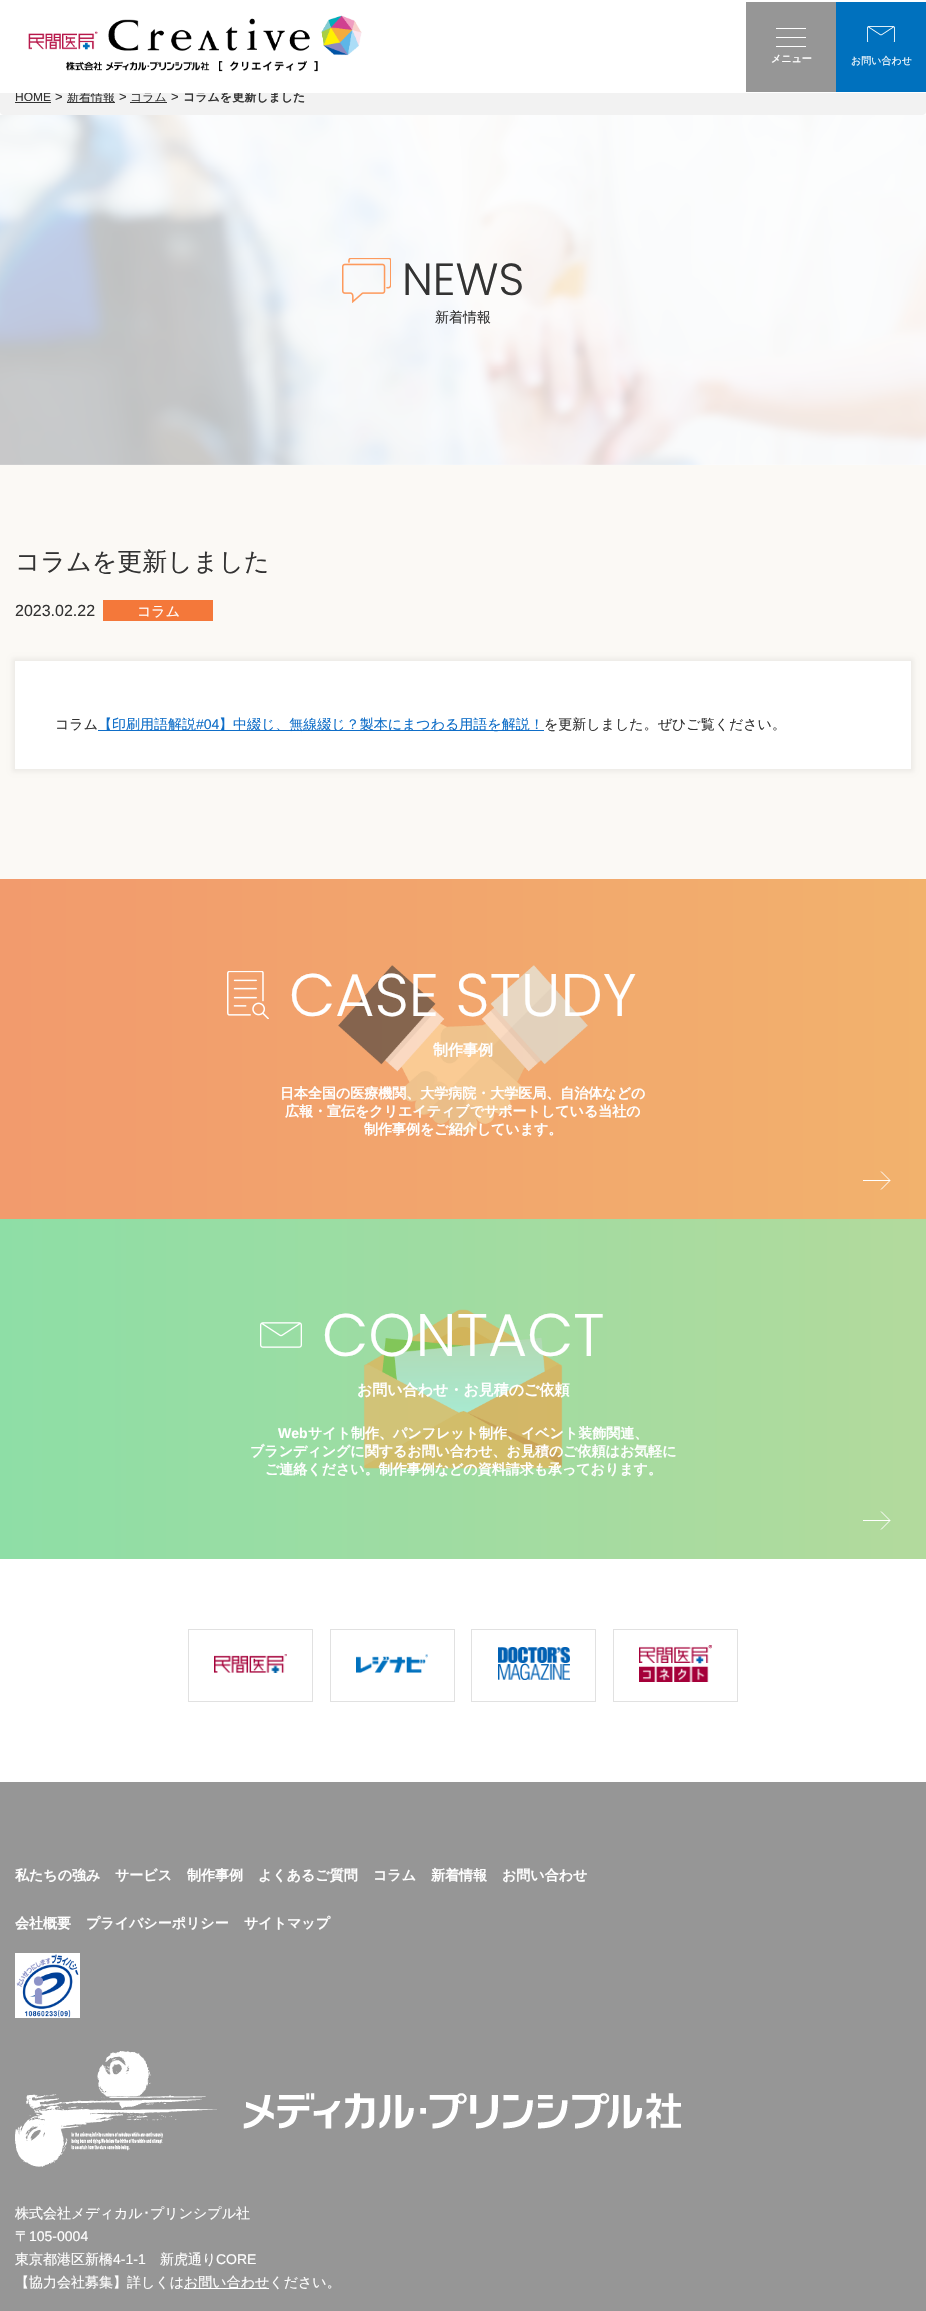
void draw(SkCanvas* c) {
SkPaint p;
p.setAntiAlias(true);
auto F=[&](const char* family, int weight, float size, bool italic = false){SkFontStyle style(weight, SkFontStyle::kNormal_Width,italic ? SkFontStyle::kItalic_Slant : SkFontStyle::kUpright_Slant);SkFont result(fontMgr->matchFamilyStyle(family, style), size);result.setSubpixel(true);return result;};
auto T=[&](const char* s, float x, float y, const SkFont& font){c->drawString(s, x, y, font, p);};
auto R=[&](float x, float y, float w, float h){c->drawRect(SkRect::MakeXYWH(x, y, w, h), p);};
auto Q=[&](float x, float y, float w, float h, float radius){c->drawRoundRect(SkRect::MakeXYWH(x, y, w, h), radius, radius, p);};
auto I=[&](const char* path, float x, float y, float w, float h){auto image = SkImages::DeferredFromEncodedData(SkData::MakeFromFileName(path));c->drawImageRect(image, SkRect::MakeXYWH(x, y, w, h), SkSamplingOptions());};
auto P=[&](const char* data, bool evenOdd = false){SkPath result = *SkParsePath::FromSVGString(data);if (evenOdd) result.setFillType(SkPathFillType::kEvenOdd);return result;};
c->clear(0xffffffff);
p.setColor(0xfff2f2f2);
Q(0,80,926,35,4);
auto f1 = F("Liberation Sans",400,12);
p.setColor(0xff333333);
T("HOME",15,101,f1);
R(67,102,48,1);
auto f2 = F("WenQuanYi Zen Hei",500,12);
T("新着情報",67,101,f2);
R(130,102,37,1);
T("コラム",130,101,f2);
auto f3 = F("WenQuanYi Zen Hei",700,12);
T("コラムを更新しました",183,101,f3);
p.setColor(0xffffffff);
R(0,80,926,13);
I("1.png",28,15,334,57);
p.setColor(0xff969696);
R(746,2,90,90);
p.setColor(0xffffffff);
R(776,28,30,1);
R(776,37,30,1);
R(776,46,30,1);
auto f4 = F("WenQuanYi Zen Hei",700,10);
T("メニュー",771,62,f4);
p.setColor(0xff0071be);
R(836,2,90,90);
I("2.png",867,26,28,16);
auto f5 = F("WenQuanYi Zen Hei",500,10);
p.setColor(0xffffffff);
T("お問い合わせ",851,64,f5);
p.setColor(0xff333333);
R(15,102,36,1);
auto f6 = F("Liberation Sans",400,13);
T(">",55,101,f6);
T(">",119,101,f6);
T(">",171,101,f6);
I("3.png",0,115,926,350);
I("4.png",342,258,49,45);
auto f7 = F("Poppins",300,45);
T("NEWS",402,295,f7);
auto f8 = F("WenQuanYi Zen Hei",500,14);
T("新着情報",435,322,f8);
p.setColor(0xfffbf9f5);
R(0,465,926,414);
auto f9 = F("WenQuanYi Zen Hei",500,25);
p.setColor(0xff333333);
T("コラムを更新しました",15,570,f9);
auto f10 = F("Liberation Sans",400,16);
T("2023.02.22",15,616,f10);
p.setColor(0xfff4783a);
R(103,600,110,21);
p.setColor(0xffffffff);
T("コラム",137,616,f8);
p.setColor(0x0d000000);
p.setMaskFilter(SkMaskFilter::MakeBlur(kNormal_SkBlurStyle, 2));
c->drawRect(SkRect::MakeXYWH(12,658,902,114),p);
p.setMaskFilter(nullptr);
p.setColor(0xffffffff);
R(15,661,896,108);
p.setColor(0xff333333);
T("コラム",55,729,f8);
p.setColor(0xff0f6ec8);
R(98,730,446,1);
T("【印刷用語解説",98,729,f8);
auto f11 = F("Liberation Sans",400,14);
T("#04",196,729,f11);
T("】中綴じ、無線綴じ？製本にまつわる用語を解説！",219,729,f8);
p.setColor(0xff333333);
T("を更新しました。ぜひご覧ください。",544,729,f8);
I("5.png",0,879,926,340);
I("6.png",227,971,42,48);
auto f12 = F("Poppins",300,60);
p.setColor(0xffffffff);
T("CASE STUDY",289,1016,f12);
auto f13 = F("WenQuanYi Zen Hei",700,15);
T("制作事例",433,1055,f13);
auto f14 = F("WenQuanYi Zen Hei",700,14);
T("日本全国の医療機関、大学病院・大学医局、自治体などの",280,1098,f14);
T("広報・宣伝をクリエイティブでサポートしている当社の",285,1116,f14);
T("制作事例をご紹介しています。",364,1134,f14);
R(863,1180,27,1);
p.setStroke(true);
p.setStrokeWidth(1);
c->drawPath(P("M881 1171.5l9 9l-9 9"),p);
I("7.png",0,1219,926,340);
I("8.png",260,1322,42,26);
p.setStroke(false);
T("CONTACT",322,1356,f12);
T("お問い合わせ・お見積のご依頼",357,1395,f13);
auto f15 = F("Liberation Sans",700,14);
T("Web",278,1438,f15);
T("サイト制作、パンフレット制作、イベント装飾関連、",308,1438,f14);
T("ブランディングに関するお問い合わせ、お見積のご依頼はお気軽に",250,1456,f14);
T("ご連絡ください。制作事例などの資料請求も承っております。",265,1474,f14);
R(863,1520,27,1);
p.setStroke(true);
c->drawPath(P("M881 1511.5l9 9l-9 9"),p);
p.setColor(0xffe1e1e1);
c->drawRect(SkRect::MakeXYWH(188.5,1629.5,124,72),p);
I("9.png",214,1654,73,19);
c->drawRect(SkRect::MakeXYWH(330.5,1629.5,124,72),p);
I("10.png",356,1654,72,19);
c->drawRect(SkRect::MakeXYWH(471.5,1629.5,124,72),p);
I("11.png",498,1647,72,33);
c->drawRect(SkRect::MakeXYWH(613.5,1629.5,124,72),p);
I("12.png",639,1645,73,37);
p.setStroke(false);
p.setColor(0xff969696);
R(0,1782,926,529);
p.setColor(0xffffffff);
T("私たちの強み",15,1880,f14);
T("サービス",115,1880,f14);
T("制作事例",187,1880,f14);
T("よくあるご質問",258,1880,f14);
T("コラム",373,1880,f14);
T("新着情報",431,1880,f14);
T("お問い合わせ",502,1880,f14);
T("会社概要",15,1928,f14);
T("プライバシーポリシー",86,1928,f14);
T("サイトマップ",244,1928,f14);
I("13.png",15,1953,65,65);
I("14.png",15,2051,666,116);
T("株式会社メディカル",15,2218,f8);
auto f16 = F("IPAPGothic",400,14);
T("･",143,2218,f16);
T("プリンシプル社",150,2218,f8);
T("〒",15,2241,f8);
T("105-0004",29,2241,f11);
T("東京都港区新橋",15,2264,f8);
T("4-1-1",113,2264,f11);
T("新虎通り",160,2264,f8);
T("CORE",216,2264,f11);
T("【協力会社募集】詳しくは",15,2287,f8);
R(184,2288,85,1);
T("お問い合わせください。",184,2287,f8);
}
